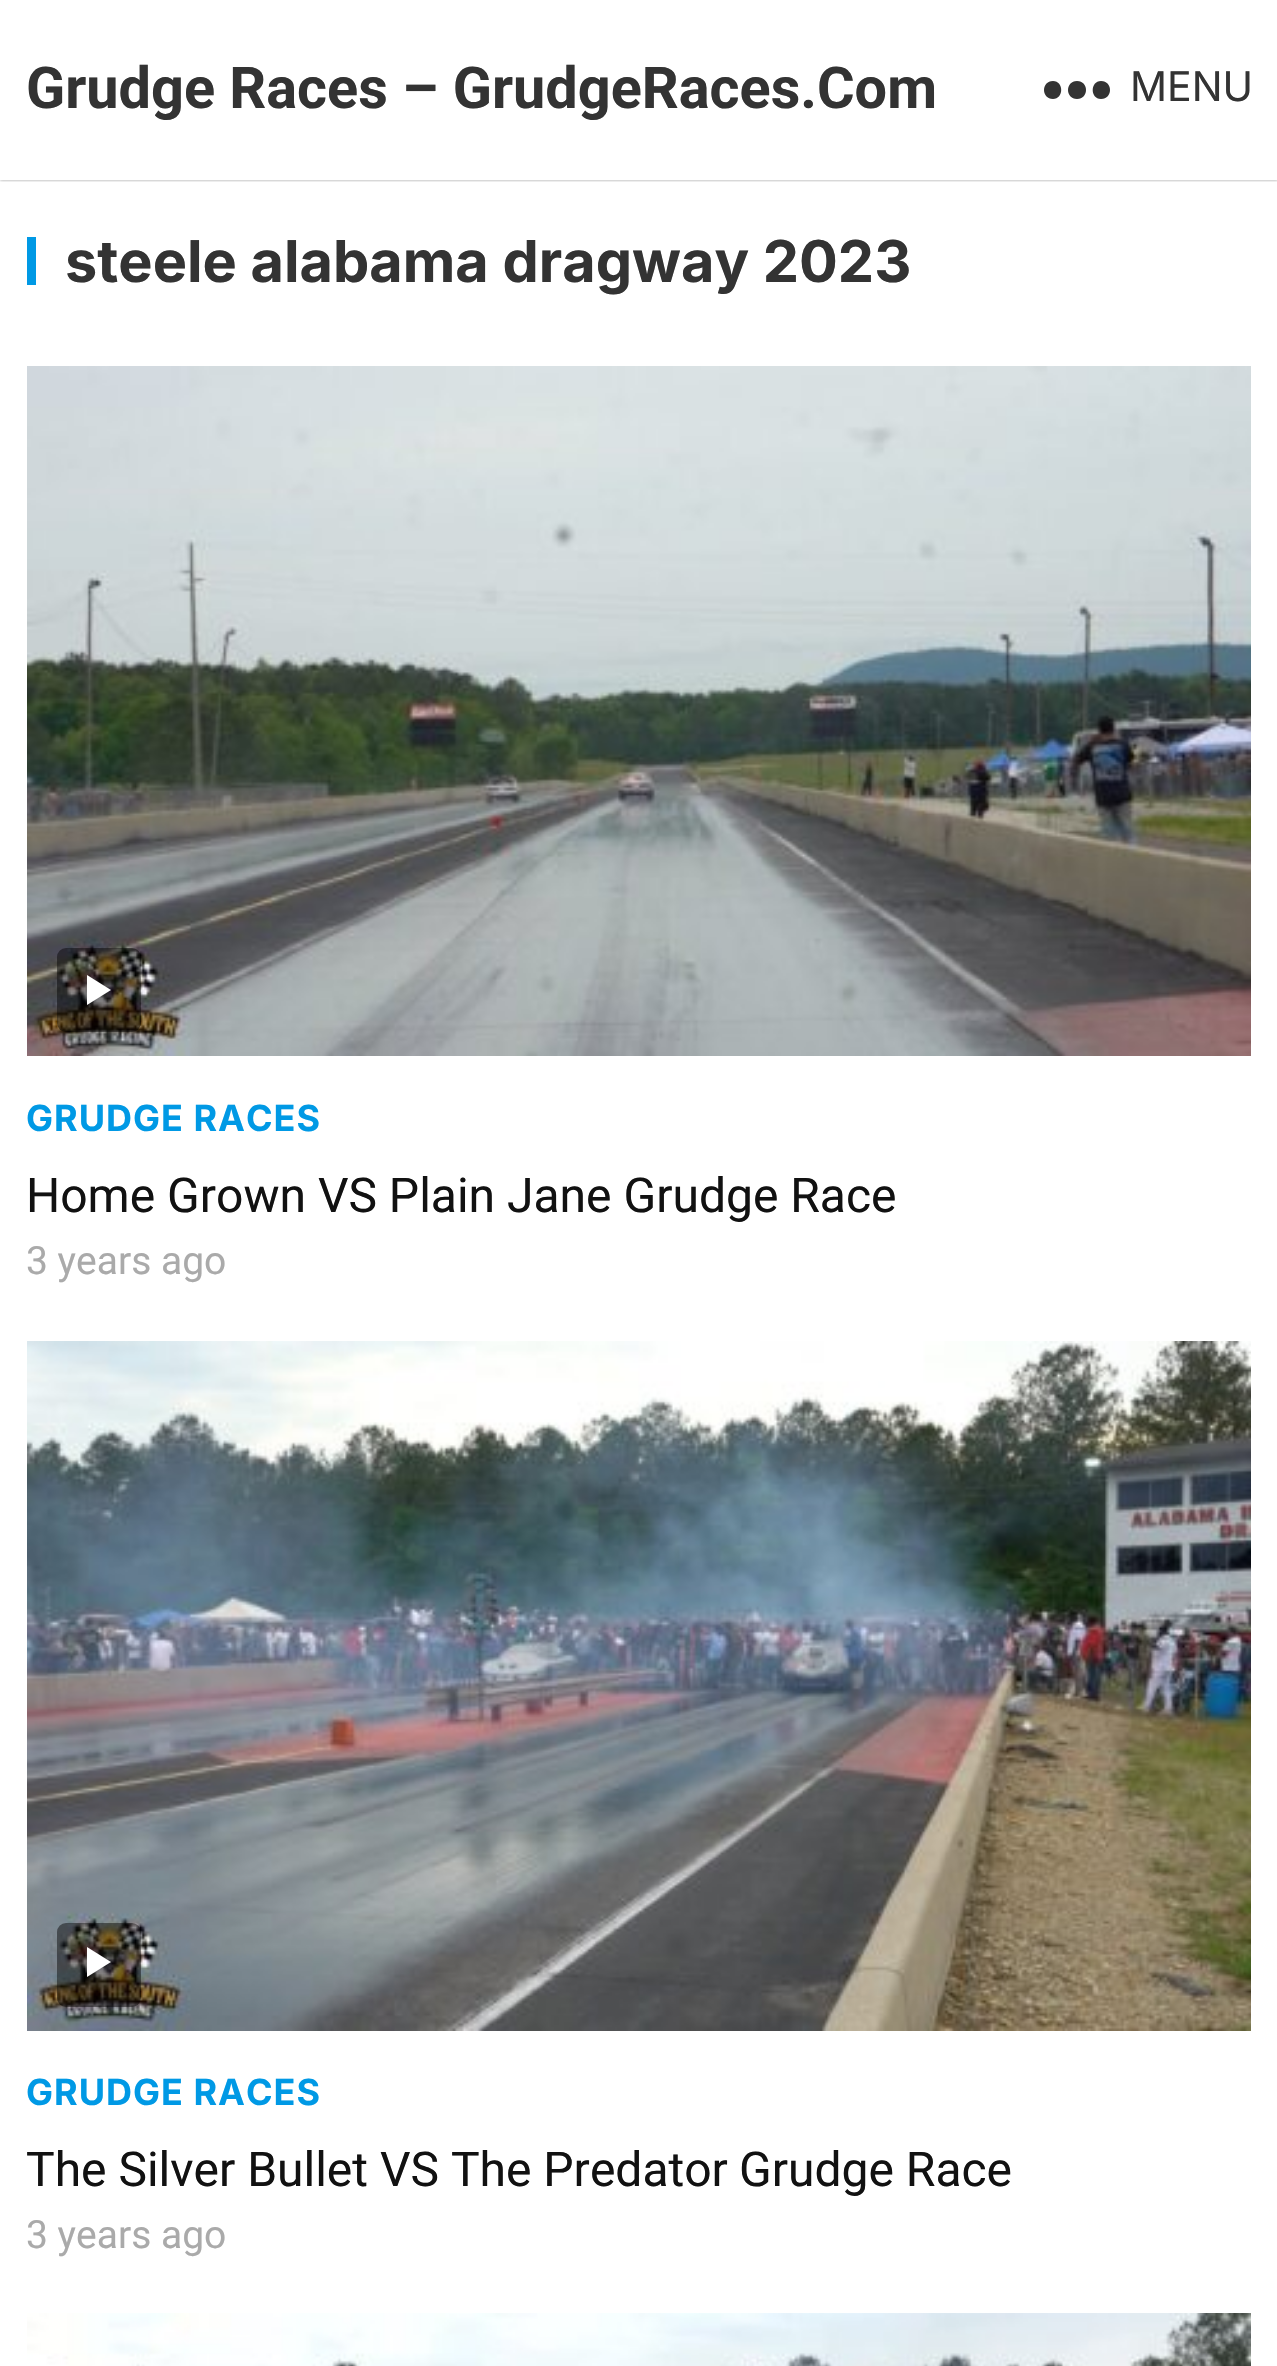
void draw(SkCanvas* c) {
SkPaint p;
p.setAntiAlias(true);
auto F=[&](const char* family, int weight, float size, bool italic = false){SkFontStyle style(weight, SkFontStyle::kNormal_Width,italic ? SkFontStyle::kItalic_Slant : SkFontStyle::kUpright_Slant);SkFont result(fontMgr->matchFamilyStyle(family, style), size);result.setSubpixel(true);return result;};
auto T=[&](const char* s, float x, float y, const SkFont& font){c->drawString(s, x, y, font, p);};
auto L=[&](const char* s, float x, float y, const SkFont& font, const SkPaint& ink, float letter, float word){std::vector<SkGlyphID> glyphs(font.countText(s, strlen(s), SkTextEncoding::kUTF8));std::vector<float> xs(glyphs.size());font.textToGlyphs(s, strlen(s), SkTextEncoding::kUTF8, glyphs);font.getXPos(glyphs, xs, x);float extra = 0;for (size_t i = 0; i < glyphs.size(); i++) {xs[i] += extra;extra += letter + word * (glyphs[i] == font.unicharToGlyph(' '));}c->drawTextBlob(SkTextBlob::MakeFromPosHGlyphs(glyphs, xs, y, font), 0, 0, ink);};
auto R=[&](float x, float y, float w, float h){c->drawRect(SkRect::MakeXYWH(x, y, w, h), p);};
auto Q=[&](float x, float y, float w, float h, float radius){c->drawRoundRect(SkRect::MakeXYWH(x, y, w, h), radius, radius, p);};
auto I=[&](const char* path, float x, float y, float w, float h){auto image = SkImages::DeferredFromEncodedData(SkData::MakeFromFileName(path));c->drawImageRect(image, SkRect::MakeXYWH(x, y, w, h), SkSamplingOptions());};
auto P=[&](const char* data, bool evenOdd = false){SkPath result = *SkParsePath::FromSVGString(data);if (evenOdd) result.setFillType(SkPathFillType::kEvenOdd);return result;};
c->clear(0xffffffff);
c->save();
c->clipRect(SkRect::MakeXYWH(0,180,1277,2));
p.setColor(0x66000000);
p.setMaskFilter(SkMaskFilter::MakeBlur(kNormal_SkBlurStyle, 1.5));
c->drawRect(SkRect::MakeXYWH(0,0,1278,180),p);
p.setMaskFilter(nullptr);
c->restore();
auto f1 = F("Roboto",700,57.6);
p.setColor(0xff333333);
T("Grudge Races – GrudgeRaces.Com",26,108,f1);
auto f2 = F("Inter",400,41);
T("MENU",1130,101,f2);
c->drawPath(P("M1053 99c-12 0-12-18 0-18c11 0 11 18 0 18zm24 0c-12 0-12-18 0-18c12 0 12 18 0 18zm24 0c-11 0-11-18 0-18c12 0 12 18 0 18z",true),p);
p.setColor(0xff0099e5);
R(27,237,9,48);
auto f3 = F("Inter",700,57.6);
p.setColor(0xff333333);
T("steele alabama dragway 2023",65,282,f3);
I("1.png",27,366,1224,690);
p.setColor(0x73000000);
Q(57,948,84,84,9);
p.setColor(0xffffffff);
c->drawPath(P("M87 975l24 15l-24 15z"),p);
auto f4 = F("Inter",700,36);
p.setColor(0xff0099e5);
L("GRUDGE RACES",26,1131,f4,p,1,0);
auto f5 = F("Roboto",400,48);
p.setColor(0xff111111);
T("Home Grown VS Plain Jane Grudge Race",26,1212,f5);
auto f6 = F("Roboto",400,39);
p.setColor(0xffaaaaaa);
T("3 years ago",26,1274,f6);
I("2.png",27,1341,1224,690);
p.setColor(0x73000000);
Q(57,1923,84,84,9);
p.setColor(0xffffffff);
c->drawPath(P("M87 1947l24 15l-24 15z"),p);
p.setColor(0xff0099e5);
L("GRUDGE RACES",26,2105,f4,p,1,0);
c->save();
c->clipRect(SkRect::MakeXYWH(27,2142,1224,60));
p.setColor(0xff111111);
T("The Silver Bullet VS The Predator",26,2186,f5);
c->restore();
T("Grudge Race",739,2186,f5);
p.setColor(0xffaaaaaa);
T("3 years ago",26,2248,f6);
I("3.png",27,2313,1224,53);
}
